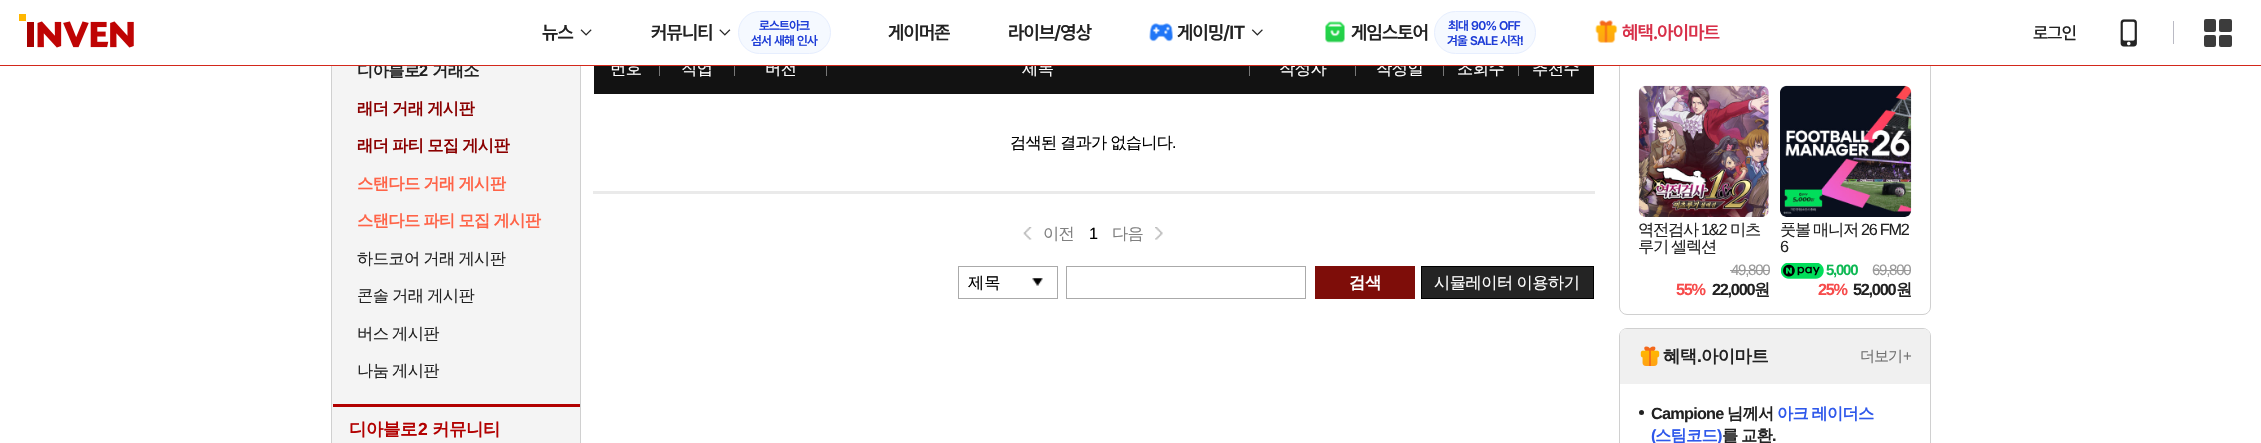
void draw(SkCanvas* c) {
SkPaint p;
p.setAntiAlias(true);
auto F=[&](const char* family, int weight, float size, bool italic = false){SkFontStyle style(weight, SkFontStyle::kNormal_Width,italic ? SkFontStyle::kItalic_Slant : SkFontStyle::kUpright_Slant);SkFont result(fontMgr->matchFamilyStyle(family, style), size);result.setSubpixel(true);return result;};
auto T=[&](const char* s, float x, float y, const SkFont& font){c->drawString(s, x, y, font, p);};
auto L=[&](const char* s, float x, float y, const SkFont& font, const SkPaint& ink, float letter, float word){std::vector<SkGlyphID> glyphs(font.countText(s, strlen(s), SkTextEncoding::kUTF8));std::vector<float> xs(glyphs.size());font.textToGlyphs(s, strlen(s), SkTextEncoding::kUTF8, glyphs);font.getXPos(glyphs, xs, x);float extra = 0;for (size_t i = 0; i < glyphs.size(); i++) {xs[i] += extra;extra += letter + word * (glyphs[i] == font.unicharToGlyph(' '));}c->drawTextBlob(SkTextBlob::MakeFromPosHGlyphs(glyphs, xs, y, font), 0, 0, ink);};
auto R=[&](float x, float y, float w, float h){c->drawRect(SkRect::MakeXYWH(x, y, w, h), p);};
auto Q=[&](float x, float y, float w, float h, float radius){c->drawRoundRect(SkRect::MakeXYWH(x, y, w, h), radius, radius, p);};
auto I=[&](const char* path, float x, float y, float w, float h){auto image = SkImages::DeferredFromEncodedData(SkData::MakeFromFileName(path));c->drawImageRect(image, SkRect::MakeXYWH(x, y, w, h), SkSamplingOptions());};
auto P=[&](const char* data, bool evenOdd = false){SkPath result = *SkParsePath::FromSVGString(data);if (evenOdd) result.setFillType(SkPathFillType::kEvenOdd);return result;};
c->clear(0xffffffff);
p.setColor(0xfff4f4f4);
R(332,66,248,377);
auto f1 = F("WenQuanYi Zen Hei",700,16.25);
p.setColor(0xff222222);
L("디아블로",357,76,f1,p,-.6,0);
auto f2 = F("Liberation Sans",700,16.25);
L("2",419,76,f2,p,-.6,0);
L("거래소",432,76,f1,p,-.6,0);
p.setColor(0xff121212);
R(594,66,1000,28);
p.setColor(0xff777777);
R(659,64,1,12);
R(734,64,1,12);
R(826,64,1,12);
R(1249,64,1,12);
R(1355,64,1,12);
R(1443,64,1,12);
R(1518,64,1,12);
p.setStroke(true);
p.setStrokeWidth(1);
p.setColor(0xffd0d0d0);
c->drawRoundRect(SkRect::MakeXYWH(1619.5,-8.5,311,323),7.5,7.5,p);
p.setStroke(false);
p.setColor(0xffffffff);
R(369,0,1562,65);
auto f3 = F("WenQuanYi Zen Hei",500,16.25);
L("번호",610,74,f3,p,-.5,0);
L("직업",681,74,f3,p,-.5,0);
L("버전",765,74,f3,p,-.5,0);
L("제목",1022,74,f3,p,-.5,0);
L("작성자",1279,74,f3,p,-.5,0);
L("작성일",1376,74,f3,p,-.5,0);
L("조회수",1457,74,f3,p,-.5,0);
L("추천수",1532,74,f3,p,-.5,0);
p.setColor(0xffd3281b);
R(0,65,2261,1);
I("1.png",19,14,115,34);
auto f4 = F("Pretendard",600,18.75);
p.setColor(0xff222222);
L("뉴스",542,39,f4,p,-.75,0);
I("2.png",580,29,12,7);
L("커뮤니티",651,39,f4,p,-.75,0);
I("3.png",719,29,12,7);
p.setColor(0xfff5f9ff);
c->drawRoundRect(SkRect::MakeXYWH(738.5,11.5,92,42),21,21,p);
p.setStroke(true);
p.setColor(0xffe6eefe);
c->drawRoundRect(SkRect::MakeXYWH(738.5,11.5,92,42),21,21,p);
auto f5 = F("Pretendard",600,12.5);
p.setStroke(false);
p.setColor(0xff1e3dd7);
L("로스트아크",759,30,f5,p,-.75,0);
L("섬서",751,45,f5,p,-.75,0);
L("새해",774,45,f5,p,-.75,0);
L("인사",797,45,f5,p,-.75,0);
p.setColor(0xff222222);
L("게이머존",888,39,f4,p,-.75,0);
L("라이브/영상",1008,39,f4,p,-.75,0);
I("4.png",1149,23,24,19);
L("게이밍/IT",1177,39,f4,p,-.75,0);
I("5.png",1251,29,12,7);
I("6.png",1325,21,20,22);
L("게임스토어",1351,39,f4,p,-.75,0);
p.setColor(0xfff5f9ff);
c->drawRoundRect(SkRect::MakeXYWH(1434.5,11.5,101,42),21,21,p);
p.setStroke(true);
p.setColor(0xffe6eefe);
c->drawRoundRect(SkRect::MakeXYWH(1434.5,11.5,101,42),21,21,p);
p.setStroke(false);
p.setColor(0xff1e3dd7);
L("최대",1448,30,f5,p,-.75,0);
L("90%",1471,30,f5,p,-.75,0);
L("OFF",1499,30,f5,p,-.75,0);
L("겨울",1447,45,f5,p,-.75,0);
L("SALE",1470,45,f5,p,-.75,0);
L("시작!",1500,45,f5,p,-.75,0);
I("7.png",1595,20,23,23);
p.setColor(0xffd83049);
L("혜택.아이마트",1622,39,f4,p,-.75,0);
auto f6 = F("Pretendard",500,17.5);
p.setColor(0xff222222);
L("로그인",2033,39,f6,p,-.75,0);
I("8.png",2120,19,17,28);
p.setColor(0xff3c3c3c);
Q(2204,19,12,13,2);
Q(2204,35,12,12,2);
Q(2219,19,13,13,2);
Q(2219,35,13,12,2);
p.setColor(0xffbabac4);
R(2173,21,1,23);
p.setColor(0xffd0d0d0);
R(580,66,1,377);
R(331,66,1,377);
p.setColor(0xff8b0000);
L("래더 거래 게시판",357,114,f1,p,-.6,-.5);
L("래더 파티 모집 게시판",357,151,f1,p,-.6,-.5);
p.setColor(0xffff6347);
L("스탠다드 거래 게시판",357,189,f1,p,-.6,-.5);
L("스탠다드 파티 모집 게시판",357,226,f1,p,-.6,-.5);
p.setColor(0xff222222);
L("하드코어 거래 게시판",357,264,f3,p,-.6,-.5);
L("콘솔 거래 게시판",357,301,f3,p,-.6,-.5);
L("버스 게시판",357,339,f3,p,-.6,-.5);
L("나눔 게시판",357,376,f3,p,-.6,-.5);
p.setColor(0xffb20000);
R(333,404,247,3);
auto f7 = F("WenQuanYi Zen Hei",700,17.5);
L("디아블로",349,435,f7,p,-.5,0);
auto f8 = F("Liberation Sans",700,17.5);
L("2",418,435,f8,p,-.5,0);
L("커뮤니티",432,435,f7,p,-.5,0);
p.setColor(0xffeaeaea);
R(593,191,1002,3);
p.setColor(0xff000000);
L("검색된 결과가 없습니다",1010,148,f3,p,-.75,-.5);
auto f9 = F("Liberation Sans",400,16.25);
L(".",1172,148,f9,p,-.75,0);
I("9.png",1023,227,9,13);
p.setColor(0xff808080);
L("이전",1043,239,f3,p,-.75,0);
p.setColor(0xff000000);
L("1",1089,239,f9,p,-.75,0);
I("10.png",1155,227,8,13);
p.setColor(0xff808080);
L("다음",1112,239,f3,p,-.75,0);
I("11.png",1032,278,11,8);
p.setStroke(true);
p.setColor(0xffaaaaaa);
c->drawRect(SkRect::MakeXYWH(958.5,266.5,99,32),p);
p.setStroke(false);
p.setColor(0xff000000);
T("제목",968,288,f3);
p.setStroke(true);
p.setColor(0xffaaaaaa);
c->drawRect(SkRect::MakeXYWH(1066.5,266.5,239,32),p);
p.setStroke(false);
p.setColor(0xff7e0d09);
R(1315,266,100,33);
p.setColor(0xffffffff);
T("검색",1349,288,f1);
p.setColor(0xff242424);
c->drawRect(SkRect::MakeXYWH(1421.5,266.5,172,32),p);
p.setStroke(true);
p.setColor(0xff000000);
c->drawRect(SkRect::MakeXYWH(1421.5,266.5,172,32),p);
p.setStroke(false);
p.setColor(0xffffffff);
L("시뮬레이터 이용하기",1434,288,f3,p,-.5,-.5);
I("12.png",1638,85,131,132);
p.setColor(0xff222222);
L("역전검사",1638,235,f3,p,-1.25,0);
L("1&2",1701,235,f9,p,-1.25,0);
L("미츠",1730,235,f3,p,-1.25,0);
L("루기 셀렉션",1638,252,f3,p,-1.25,-.5);
auto f10 = F("Liberation Sans",400,15);
p.setColor(0xff999999);
L("49,800",1731,275,f10,p,-1.25,0);
R(1730,270,39,1);
p.setColor(0xfff74b4b);
L("55%",1676,295,f2,p,-1.25,0);
p.setColor(0xff222222);
L("22,000",1712,295,f2,p,-1.25,0);
L("원",1754,295,f1,p,-1.25,0);
I("13.png",1780,85,132,132);
L("풋볼",1780,235,f3,p,-1.25,0);
L("매니저",1813,235,f3,p,-1.25,0);
L("26 FM2",1861,235,f9,p,-1.25,0);
L("6",1780,252,f9,p,-1.25,0);
I("14.png",1781,263,43,16);
auto f11 = F("Liberation Sans",700,15);
p.setColor(0xff0db953);
L("5,000",1826,275,f11,p,-1.25,0);
p.setColor(0xff999999);
L("69,800",1872,275,f10,p,-1.25,0);
R(1873,270,38,1);
p.setColor(0xfff74b4b);
L("25%",1818,295,f2,p,-1.25,0);
p.setColor(0xff222222);
L("52,000",1853,295,f2,p,-1.25,0);
L("원",1896,295,f1,p,-1.25,0);
p.setStroke(true);
p.setColor(0xffd0d0d0);
c->drawRoundRect(SkRect::MakeXYWH(1619.5,328.5,311,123),7.5,7.5,p);
p.setStroke(false);
p.setColor(0xfff0f0f0);
c->drawPath(P("M1626 329h298c3.5 0 6 2.5 6 6v49h-310v-49c0-3.5 2.5-6 6-6z"),p);
I("15.png",1640,346,20,20);
p.setColor(0xff222222);
L("혜택",1663,362,f7,p,-.75,0);
L(".",1697,362,f8,p,-.75,0);
L("아이마트",1701,362,f7,p,-.75,0);
auto f12 = F("WenQuanYi Zen Hei",500,15);
p.setColor(0xff707070);
L("더보기",1860,361,f12,p,-1,0);
L("+",1903,361,f10,p,-1,0);
p.setColor(0xff222222);
c->drawCircle(1641.5,412.5,2.5,p);
L("Campione",1651,419,f2,p,-.75,0);
L("님께서",1727,419,f1,p,-.75,0);
p.setColor(0xff2e58eb);
L("아크 레이더스",1777,419,f1,p,-.75,-.5);
L("(",1651,441,f2,p,-.75,0);
L("스팀코드",1655,441,f1,p,-.75,0);
L(")",1717,441,f2,p,-.75,0);
p.setColor(0xff222222);
L("를 교환",1722,441,f1,p,-.75,-.5);
L(".",1772,441,f2,p,-.75,0);
}
